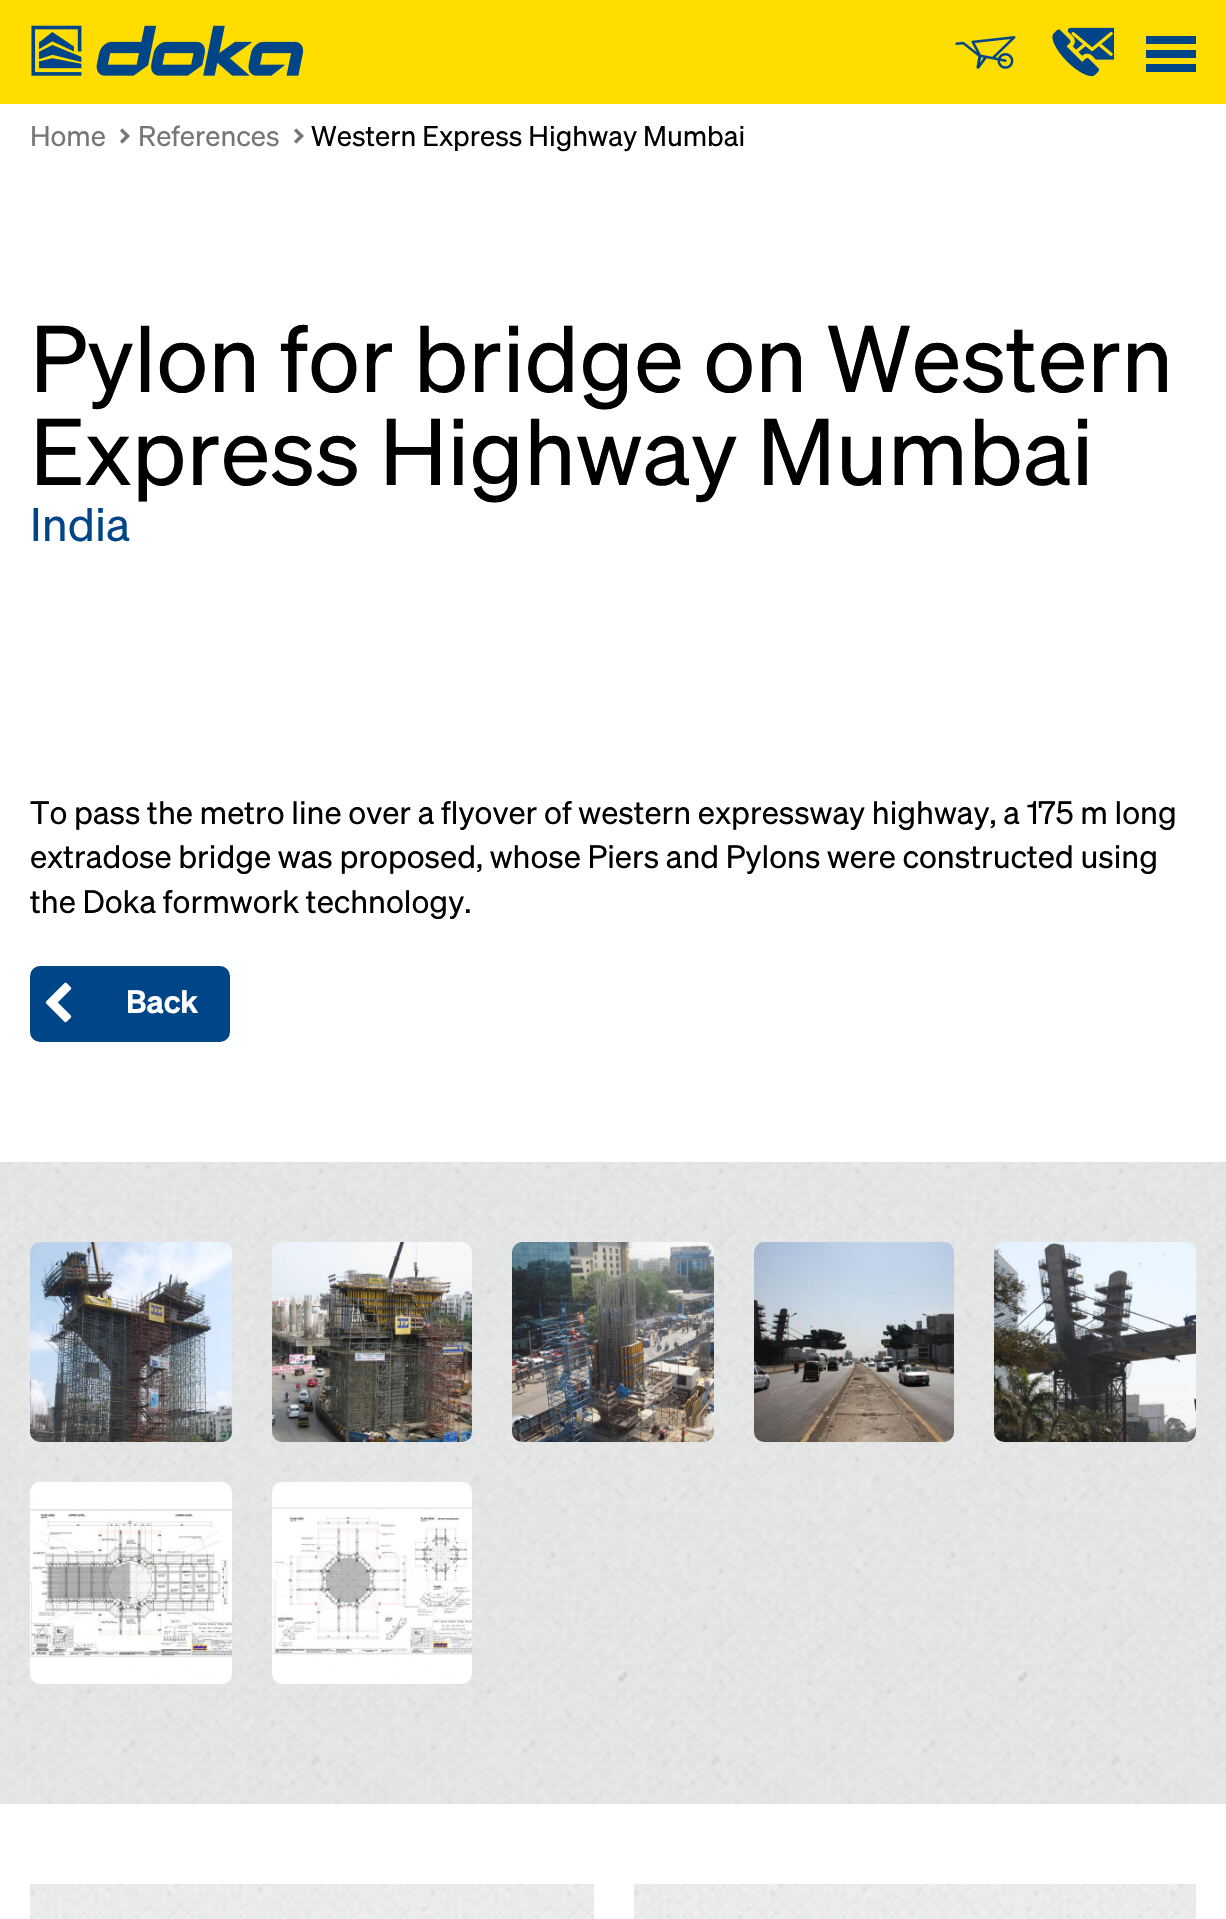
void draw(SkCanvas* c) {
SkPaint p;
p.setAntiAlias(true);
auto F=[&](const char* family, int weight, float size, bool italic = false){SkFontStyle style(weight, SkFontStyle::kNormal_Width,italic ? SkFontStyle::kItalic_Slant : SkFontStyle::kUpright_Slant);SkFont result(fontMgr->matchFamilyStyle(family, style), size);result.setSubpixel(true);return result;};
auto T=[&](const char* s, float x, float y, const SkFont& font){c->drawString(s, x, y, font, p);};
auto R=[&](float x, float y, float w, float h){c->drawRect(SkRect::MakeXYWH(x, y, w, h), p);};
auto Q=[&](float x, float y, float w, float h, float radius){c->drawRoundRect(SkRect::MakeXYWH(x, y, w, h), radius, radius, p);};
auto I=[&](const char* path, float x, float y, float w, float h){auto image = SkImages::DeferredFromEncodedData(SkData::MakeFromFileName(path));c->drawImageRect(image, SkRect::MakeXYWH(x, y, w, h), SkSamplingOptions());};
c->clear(0xffffffff);
p.setColor(0xffffdd00);
R(0,0,1226,104);
I("1.png",31,25,273,51);
I("2.png",955,36,61,33);
I("3.png",1052,27,62,50);
p.setColor(0xff004588);
R(1146,36,50,8);
R(1146,50,50,8);
R(1146,64,50,8);
auto f1 = F("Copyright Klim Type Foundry",400,28);
p.setColor(0xff767676);
T("Home",30,146,f1);
I("4.png",120,128,10,16);
T("References",138,146,f1);
I("4.png",294,128,10,16);
p.setColor(0xff000000);
T("Western Express Highway Mumbai",311,146,f1);
auto f2 = F("Copyright Klim Type Foundry",400,92.2);
T("Pylon for bridge on Western",30,392,f2);
T("Express Highway Mumbai",30,485,f2);
auto f3 = F("Copyright Klim Type Foundry",400,46);
p.setColor(0xff004588);
T("India",30,541,f3);
auto f4 = F("Copyright Klim Type Foundry",400,31.7);
p.setColor(0xff000000);
T("To pass the metro line over a flyover of western expressway highway, a 175 m long",30,824,f4);
T("extradose bridge was proposed, whose Piers and Pylons were constructed using",30,868,f4);
T("the Doka formwork technology.",30,913,f4);
p.setColor(0xff004588);
Q(30,966,200,76,10);
I("5.png",45,982,27,41);
auto f5 = F("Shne",600,31.7);
p.setColor(0xffffffff);
T("Back",126,1013,f5);
p.setColor(0xfff4f4f4);
R(0,1162,1226,642);
I("6.png",0,1162,1226,642);
I("7.png",30,1242,202,200);
I("8.png",272,1242,200,200);
I("9.png",512,1242,202,200);
I("10.png",754,1242,200,200);
I("11.png",994,1242,202,200);
I("12.png",30,1482,202,202);
I("13.png",272,1482,200,202);
I("14.png",30,1884,564,35);
I("15.png",634,1884,562,35);
}
